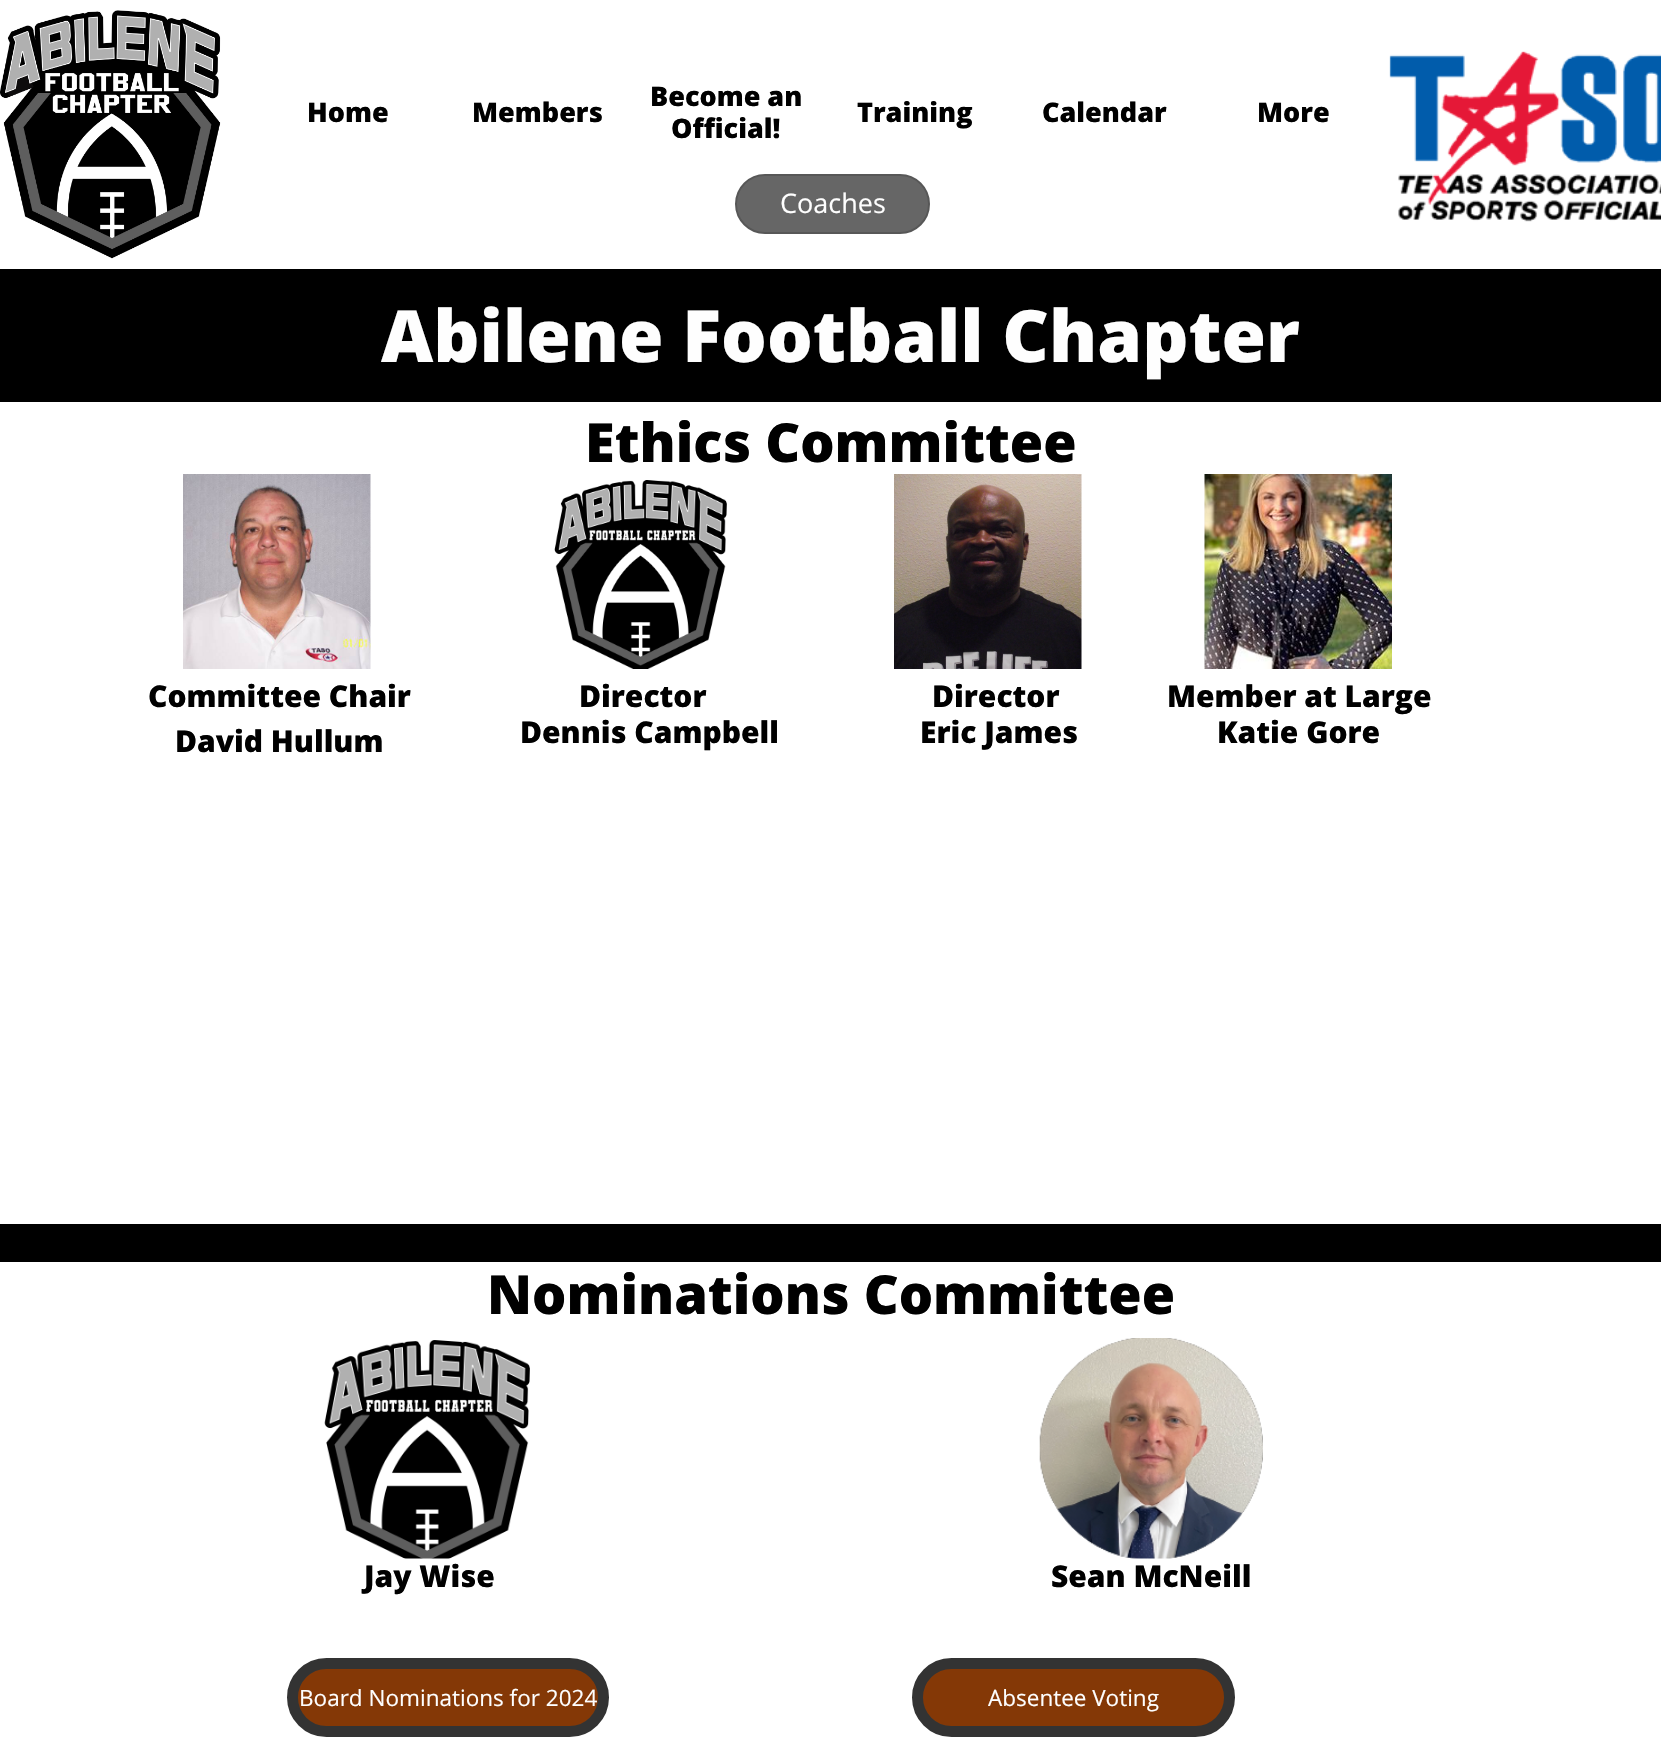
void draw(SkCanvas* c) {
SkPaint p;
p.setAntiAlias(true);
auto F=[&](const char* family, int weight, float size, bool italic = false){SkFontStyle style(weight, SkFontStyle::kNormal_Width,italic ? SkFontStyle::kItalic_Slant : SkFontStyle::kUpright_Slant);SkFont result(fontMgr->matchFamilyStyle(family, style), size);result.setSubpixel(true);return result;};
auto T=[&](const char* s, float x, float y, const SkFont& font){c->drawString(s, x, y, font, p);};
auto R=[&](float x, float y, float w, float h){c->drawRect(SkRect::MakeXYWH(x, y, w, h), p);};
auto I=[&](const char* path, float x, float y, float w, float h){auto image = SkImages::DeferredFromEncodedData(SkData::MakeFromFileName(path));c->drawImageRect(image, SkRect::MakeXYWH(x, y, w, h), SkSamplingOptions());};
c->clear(0xffffffff);
I("1.png",0,10,221,249);
auto f1 = F("Open Sans",800,27);
p.setColor(0xff000000);
T("Home",307,122,f1);
T("Members",472,122,f1);
T("Become an",650,106,f1);
T("Official!",671,138,f1);
T("Training",857,122,f1);
T("Calendar",1042,122,f1);
T("More",1257,122,f1);
I("2.png",1389,51,272,171);
p.setColor(0xff666666);
c->drawRoundRect(SkRect::MakeXYWH(736,175,193,58),29,29,p);
p.setStroke(true);
p.setStrokeWidth(2);
p.setColor(0xff575757);
c->drawRoundRect(SkRect::MakeXYWH(736,175,193,58),29,29,p);
auto f2 = F("Open Sans",400,27);
p.setStroke(false);
p.setColor(0xfffefefe);
T("Coaches",780,213,f2);
p.setColor(0xff000000);
R(0,269,1661,133);
auto f3 = F("Open Sans",800,72);
p.setColor(0xfffefefe);
T("Abilene Football Chapter",381,362,f3);
auto f4 = F("Open Sans",800,54);
p.setColor(0xff000000);
T("Ethics Committee",585,462,f4);
I("3.png",183,474,188,195);
I("4.png",554,480,173,189);
I("5.png",894,474,188,195);
I("6.png",1204,474,188,195);
auto f5 = F("Open Sans",800,30);
T("Committee Chair",148,707,f5);
T("Director",579,707,f5);
T("Director",932,707,f5);
T("Member at Large",1167,707,f5);
T("David Hullum",175,752,f5);
T("Dennis Campbell",520,743,f5);
T("Eric James",920,743,f5);
T("Katie Gore",1217,743,f5);
R(0,1224,1661,38);
T("Nominations Committee",487,1314,f4);
I("7.png",324,1340,206,219);
I("8.png",1039,1338,224,221);
T("Jay Wise",364,1587,f5);
T("Sean McNeill",1051,1587,f5);
p.setColor(0xff843806);
c->drawRoundRect(SkRect::MakeXYWH(292.5,1663.5,311,68),34,34,p);
p.setStroke(true);
p.setStrokeWidth(11);
p.setColor(0xff333333);
c->drawRoundRect(SkRect::MakeXYWH(292.5,1663.5,311,68),34,34,p);
auto f6 = F("Open Sans",400,22.5);
p.setStroke(false);
p.setColor(0xfffefefe);
T("Board Nominations for 2024",299,1706,f6);
p.setColor(0xff843806);
c->drawRoundRect(SkRect::MakeXYWH(917.5,1663.5,312,68),34,34,p);
p.setStroke(true);
p.setColor(0xff333333);
c->drawRoundRect(SkRect::MakeXYWH(917.5,1663.5,312,68),34,34,p);
p.setStroke(false);
p.setColor(0xfffefefe);
T("Absentee Voting",988,1706,f6);
}
